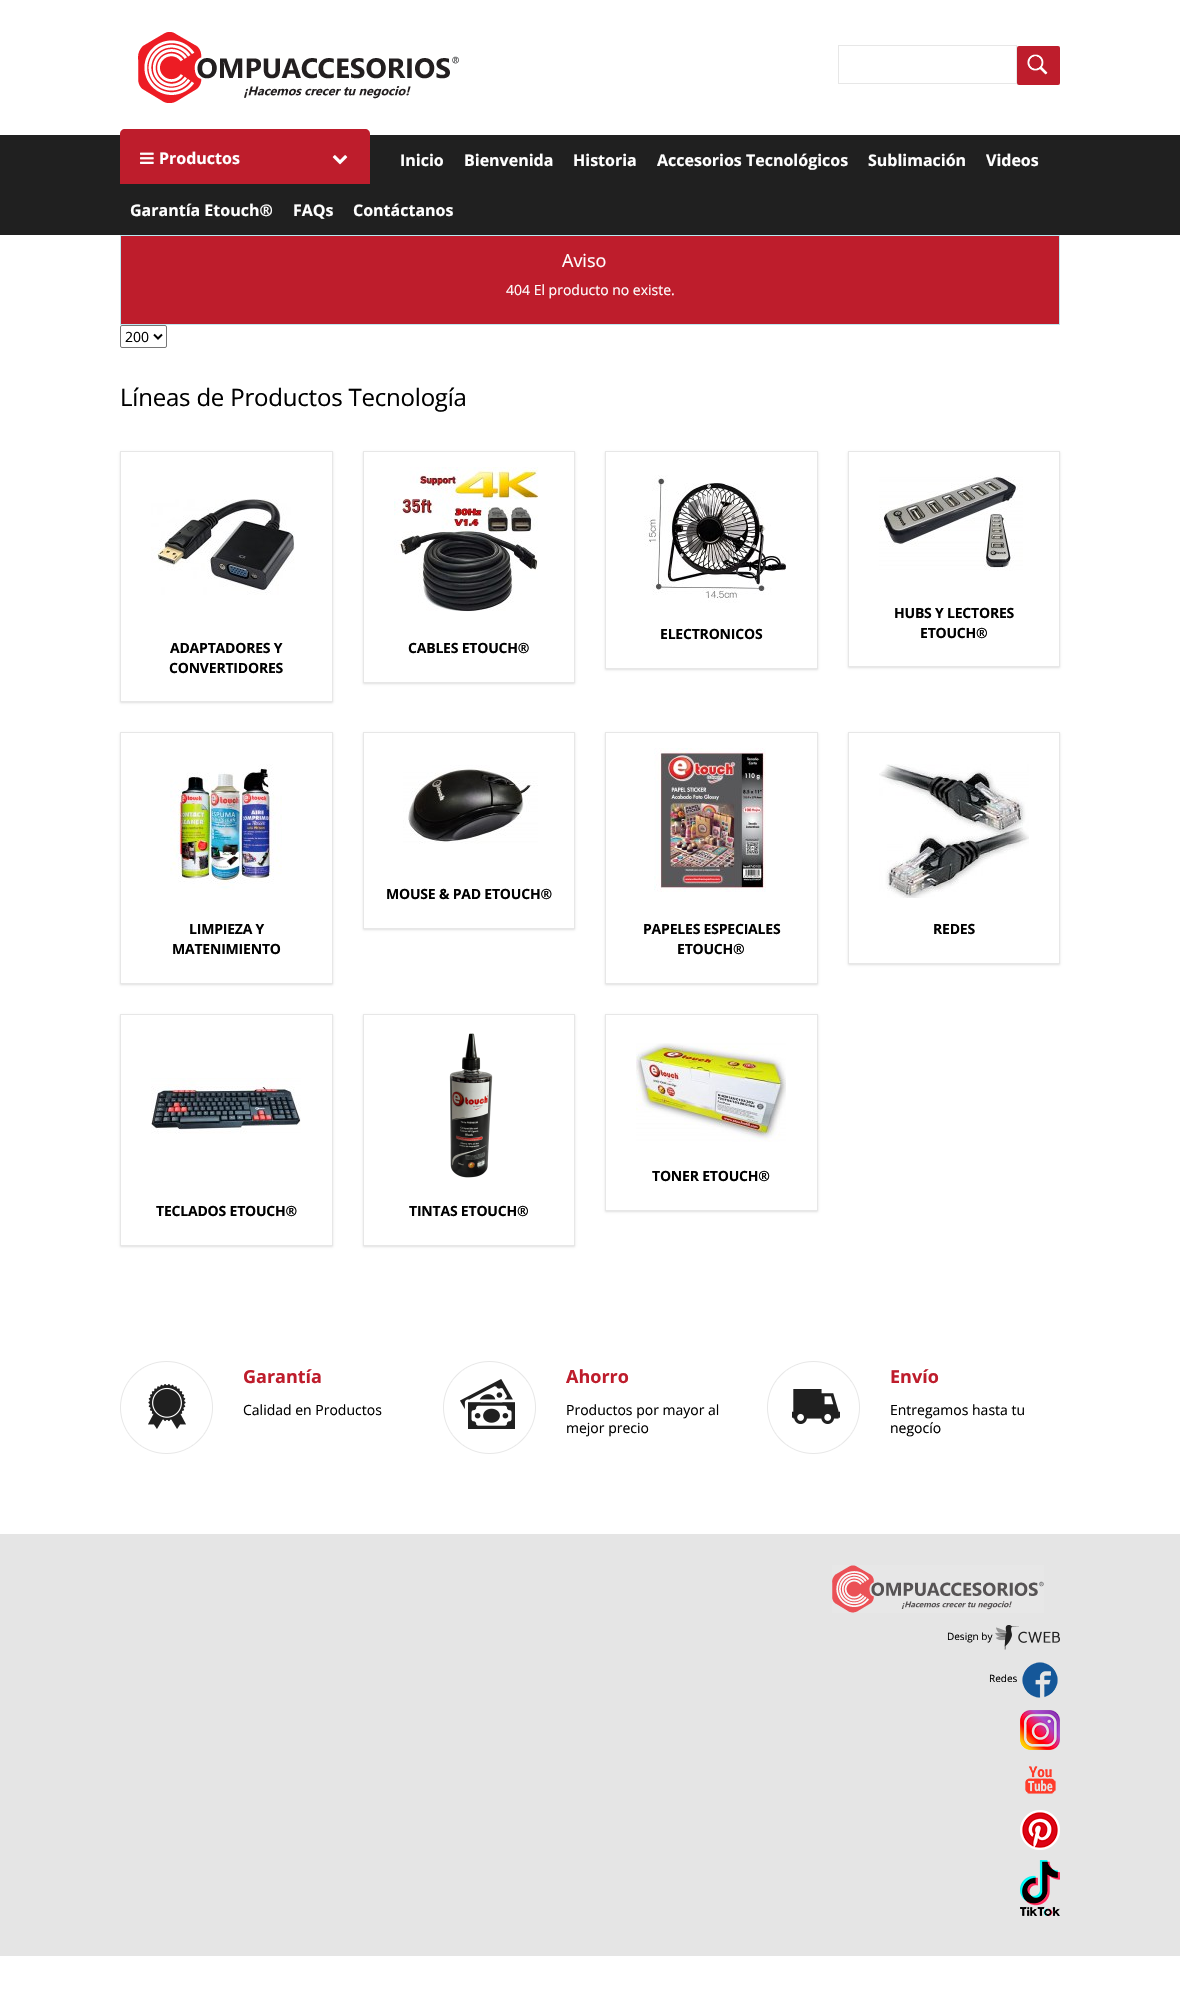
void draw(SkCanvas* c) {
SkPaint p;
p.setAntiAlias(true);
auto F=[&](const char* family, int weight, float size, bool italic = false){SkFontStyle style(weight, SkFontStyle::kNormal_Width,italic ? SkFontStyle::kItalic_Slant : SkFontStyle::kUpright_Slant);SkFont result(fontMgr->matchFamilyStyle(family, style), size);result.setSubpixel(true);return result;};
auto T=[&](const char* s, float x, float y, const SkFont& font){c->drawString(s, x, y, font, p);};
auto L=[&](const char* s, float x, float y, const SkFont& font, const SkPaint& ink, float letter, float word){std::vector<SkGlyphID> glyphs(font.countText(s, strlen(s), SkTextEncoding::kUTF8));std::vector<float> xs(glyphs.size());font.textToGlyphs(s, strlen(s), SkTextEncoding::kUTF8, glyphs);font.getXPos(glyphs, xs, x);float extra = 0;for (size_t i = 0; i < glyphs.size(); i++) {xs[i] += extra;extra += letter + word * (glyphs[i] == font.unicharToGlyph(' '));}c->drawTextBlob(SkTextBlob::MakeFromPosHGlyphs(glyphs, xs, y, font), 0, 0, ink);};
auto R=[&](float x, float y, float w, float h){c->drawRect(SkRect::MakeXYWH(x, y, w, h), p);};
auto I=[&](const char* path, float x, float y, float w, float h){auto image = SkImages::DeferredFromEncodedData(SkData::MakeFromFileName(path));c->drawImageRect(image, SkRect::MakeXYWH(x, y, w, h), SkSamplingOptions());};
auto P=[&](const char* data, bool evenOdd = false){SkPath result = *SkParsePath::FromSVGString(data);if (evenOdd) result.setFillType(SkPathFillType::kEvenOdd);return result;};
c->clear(0xffffffff);
I("1.png",138,32,321,71);
p.setStroke(true);
p.setStrokeWidth(1);
p.setColor(0xffe7e7e7);
c->drawRect(SkRect::MakeXYWH(838.5,45.5,178,38),p);
I("2.png",1017,46,43,39);
p.setStroke(false);
p.setColor(0xff202020);
R(0,135,1180,100);
p.setColor(0xffbe1d2c);
R(120,178,250,6);
c->drawPath(P("M125 129h240c3 0 5 2 5 5v44h-250v-44c0-3 2-5 5-5z"),p);
I("3.png",140,152,14,12);
auto f1 = F("Open Sans",700,16);
p.setColor(0xffffffff);
T("Productos",159,164,f1);
I("4.png",332,155,16,10);
T("Inicio",400,166,f1);
T("Bienvenida",464,166,f1);
T("Historia",573,166,f1);
T("Accesorios Tecnológicos",657,166,f1);
T("Sublimación",868,166,f1);
T("Videos",986,166,f1);
T("Garantía Etouch®",130,216,f1);
T("FAQs",293,216,f1);
T("Contáctanos",353,216,f1);
p.setColor(0xffbe1d2c);
c->drawRect(SkRect::MakeXYWH(120.5,235.5,939,89),p);
p.setStroke(true);
p.setColor(0xffbce8f1);
c->drawRect(SkRect::MakeXYWH(120.5,235.5,939,89),p);
auto f2 = F("Open Sans",400,18);
p.setStroke(false);
p.setColor(0xffffffff);
T("Aviso",562,267,f2);
auto f3 = F("Open Sans",400,14);
T("404 El producto no existe.",506,295,f3);
p.setStroke(true);
p.setColor(0xff767676);
c->drawRoundRect(SkRect::MakeXYWH(120.5,325.5,46,22),1.5,1.5,p);
p.setStrokeWidth(2);
p.setColor(0xff000000);
c->drawPath(P("M154 334.5l4 4l4-4"),p);
p.setStroke(false);
T("200",125,342,f3);
auto f4 = F("Open Sans",400,24);
L("Líneas de Productos Tecnología",120,406,f4,p,-.2,0);
c->save();
c->clipPath(P("M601 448h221v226h-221zm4 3h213v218h-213z",true),true);
p.setColor(0xffe0e0e0);
p.setMaskFilter(SkMaskFilter::MakeBlur(kNormal_SkBlurStyle, 1));
c->drawRect(SkRect::MakeXYWH(605,452,213,218),p);
p.setMaskFilter(nullptr);
c->restore();
p.setStroke(true);
p.setStrokeWidth(1);
p.setColor(0xffe7e7e7);
c->drawRect(SkRect::MakeXYWH(605.5,451.5,212,217),p);
I("5.png",644,475,142,128);
auto f5 = F("Open Sans",700,14);
p.setStroke(false);
p.setColor(0xff000000);
L("ELECTRONICOS",660,639,f5,p,-.2,0);
c->save();
c->clipPath(P("M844 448h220v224h-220zm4 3h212v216h-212z",true),true);
p.setColor(0xffe0e0e0);
p.setMaskFilter(SkMaskFilter::MakeBlur(kNormal_SkBlurStyle, 1));
c->drawRect(SkRect::MakeXYWH(848,452,212,216),p);
p.setMaskFilter(nullptr);
c->restore();
p.setStroke(true);
p.setColor(0xffe7e7e7);
c->drawRect(SkRect::MakeXYWH(848.5,451.5,211,215),p);
I("6.png",879,475,144,96);
p.setStroke(false);
p.setColor(0xff000000);
L("HUBS Y LECTORES",894,618,f5,p,-.2,0);
L("ETOUCH®",920,638,f5,p,-.2,0);
c->save();
c->clipPath(P("M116 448h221v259h-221zm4 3h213v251h-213z",true),true);
p.setColor(0xffe0e0e0);
p.setMaskFilter(SkMaskFilter::MakeBlur(kNormal_SkBlurStyle, 1));
c->drawRect(SkRect::MakeXYWH(120,452,213,251),p);
p.setMaskFilter(nullptr);
c->restore();
p.setStroke(true);
p.setColor(0xffe7e7e7);
c->drawRect(SkRect::MakeXYWH(120.5,451.5,212,250),p);
I("7.png",151,499,144,96);
p.setStroke(false);
p.setColor(0xff000000);
L("ADAPTADORES Y",170,653,f5,p,-.2,0);
L("CONVERTIDORES",169,673,f5,p,-.2,0);
c->save();
c->clipPath(P("M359 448h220v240h-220zm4 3h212v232h-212z",true),true);
p.setColor(0xffe0e0e0);
p.setMaskFilter(SkMaskFilter::MakeBlur(kNormal_SkBlurStyle, 1));
c->drawRect(SkRect::MakeXYWH(363,452,212,232),p);
p.setMaskFilter(nullptr);
c->restore();
p.setStroke(true);
p.setColor(0xffe7e7e7);
c->drawRect(SkRect::MakeXYWH(363.5,451.5,211,231),p);
I("8.png",394,467,145,145);
p.setStroke(false);
p.setColor(0xff000000);
L("CABLES ETOUCH®",408,653,f5,p,-.2,0);
c->save();
c->clipPath(P("M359 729h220v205h-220zm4 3h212v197h-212z",true),true);
p.setColor(0xffe0e0e0);
p.setMaskFilter(SkMaskFilter::MakeBlur(kNormal_SkBlurStyle, 1));
c->drawRect(SkRect::MakeXYWH(363,733,212,197),p);
p.setMaskFilter(nullptr);
c->restore();
p.setStroke(true);
p.setColor(0xffe7e7e7);
c->drawRect(SkRect::MakeXYWH(363.5,732.5,211,196),p);
I("9.png",403,765,135,79);
p.setStroke(false);
p.setColor(0xff000000);
L("MOUSE & PAD ETOUCH®",386,899,f5,p,-.2,0);
c->save();
c->clipPath(P("M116 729h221v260h-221zm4 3h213v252h-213z",true),true);
p.setColor(0xffe0e0e0);
p.setMaskFilter(SkMaskFilter::MakeBlur(kNormal_SkBlurStyle, 1));
c->drawRect(SkRect::MakeXYWH(120,733,213,252),p);
p.setMaskFilter(nullptr);
c->restore();
p.setStroke(true);
p.setColor(0xffe7e7e7);
c->drawRect(SkRect::MakeXYWH(120.5,732.5,212,251),p);
I("10.png",170,764,112,126);
p.setStroke(false);
p.setColor(0xff000000);
L("LIMPIEZA Y",189,934,f5,p,-.2,0);
L("MATENIMIENTO",172,954,f5,p,-.2,0);
c->save();
c->clipPath(P("M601 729h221v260h-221zm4 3h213v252h-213z",true),true);
p.setColor(0xffe0e0e0);
p.setMaskFilter(SkMaskFilter::MakeBlur(kNormal_SkBlurStyle, 1));
c->drawRect(SkRect::MakeXYWH(605,733,213,252),p);
p.setMaskFilter(nullptr);
c->restore();
p.setStroke(true);
p.setColor(0xffe7e7e7);
c->drawRect(SkRect::MakeXYWH(605.5,732.5,212,251),p);
I("11.png",654,748,112,144);
p.setStroke(false);
p.setColor(0xff000000);
L("PAPELES ESPECIALES",643,934,f5,p,-.2,0);
L("ETOUCH®",677,954,f5,p,-.2,0);
c->save();
c->clipPath(P("M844 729h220v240h-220zm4 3h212v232h-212z",true),true);
p.setColor(0xffe0e0e0);
p.setMaskFilter(SkMaskFilter::MakeBlur(kNormal_SkBlurStyle, 1));
c->drawRect(SkRect::MakeXYWH(848,733,212,232),p);
p.setMaskFilter(nullptr);
c->restore();
p.setStroke(true);
p.setColor(0xffe7e7e7);
c->drawRect(SkRect::MakeXYWH(848.5,732.5,211,231),p);
I("12.png",879,764,150,134);
p.setStroke(false);
p.setColor(0xff000000);
L("REDES",933,934,f5,p,-.2,0);
c->save();
c->clipPath(P("M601 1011h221v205h-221zm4 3h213v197h-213z",true),true);
p.setColor(0xffe0e0e0);
p.setMaskFilter(SkMaskFilter::MakeBlur(kNormal_SkBlurStyle, 1));
c->drawRect(SkRect::MakeXYWH(605,1015,213,197),p);
p.setMaskFilter(nullptr);
c->restore();
p.setStroke(true);
p.setColor(0xffe7e7e7);
c->drawRect(SkRect::MakeXYWH(605.5,1014.5,212,196),p);
I("13.png",636,1043,150,99);
p.setStroke(false);
p.setColor(0xff000000);
L("TONER ETOUCH®",652,1181,f5,p,-.2,0);
c->save();
c->clipPath(P("M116 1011h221v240h-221zm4 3h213v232h-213z",true),true);
p.setColor(0xffe0e0e0);
p.setMaskFilter(SkMaskFilter::MakeBlur(kNormal_SkBlurStyle, 1));
c->drawRect(SkRect::MakeXYWH(120,1015,213,232),p);
p.setMaskFilter(nullptr);
c->restore();
p.setStroke(true);
p.setColor(0xffe7e7e7);
c->drawRect(SkRect::MakeXYWH(120.5,1014.5,212,231),p);
I("14.png",151,1078,150,56);
p.setStroke(false);
p.setColor(0xff000000);
L("TECLADOS ETOUCH®",156,1216,f5,p,-.2,0);
c->save();
c->clipPath(P("M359 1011h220v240h-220zm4 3h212v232h-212z",true),true);
p.setColor(0xffe0e0e0);
p.setMaskFilter(SkMaskFilter::MakeBlur(kNormal_SkBlurStyle, 1));
c->drawRect(SkRect::MakeXYWH(363,1015,212,232),p);
p.setMaskFilter(nullptr);
c->restore();
p.setStroke(true);
p.setColor(0xffe7e7e7);
c->drawRect(SkRect::MakeXYWH(363.5,1014.5,211,231),p);
I("15.png",449,1033,44,145);
p.setStroke(false);
p.setColor(0xff000000);
L("TINTAS ETOUCH®",409,1216,f5,p,-.2,0);
I("16.png",120,1361,93,93);
auto f6 = F("Open Sans",700,18);
p.setColor(0xffbe1d2c);
T("Garantía",243,1383,f6);
p.setColor(0xff000000);
T("Calidad en Productos",243,1415,f3);
I("17.png",443,1361,93,93);
p.setColor(0xffbe1d2c);
T("Ahorro",566,1383,f6);
p.setColor(0xff000000);
T("Productos por mayor al",566,1415,f3);
T("mejor precio",566,1433,f3);
I("18.png",767,1361,93,93);
p.setColor(0xffbe1d2c);
T("Envío",890,1383,f6);
p.setColor(0xff000000);
T("Entregamos hasta tu",890,1415,f3);
T("negocío",890,1433,f3);
p.setColor(0xffe5e5e5);
R(0,1534,1180,422);
I("19.png",832,1565,212,48);
auto f7 = F("Open Sans",400,10);
p.setColor(0xff000000);
T("Design by",947,1640,f7);
I("20.png",995,1625,65,25);
T("Redes",989,1682,f7);
I("21.png",1022,1662,36,36);
I("22.png",1020,1710,40,40);
I("23.png",1025,1766,31,28);
I("24.png",1020,1810,40,40);
I("25.png",1020,1860,40,56);
}
